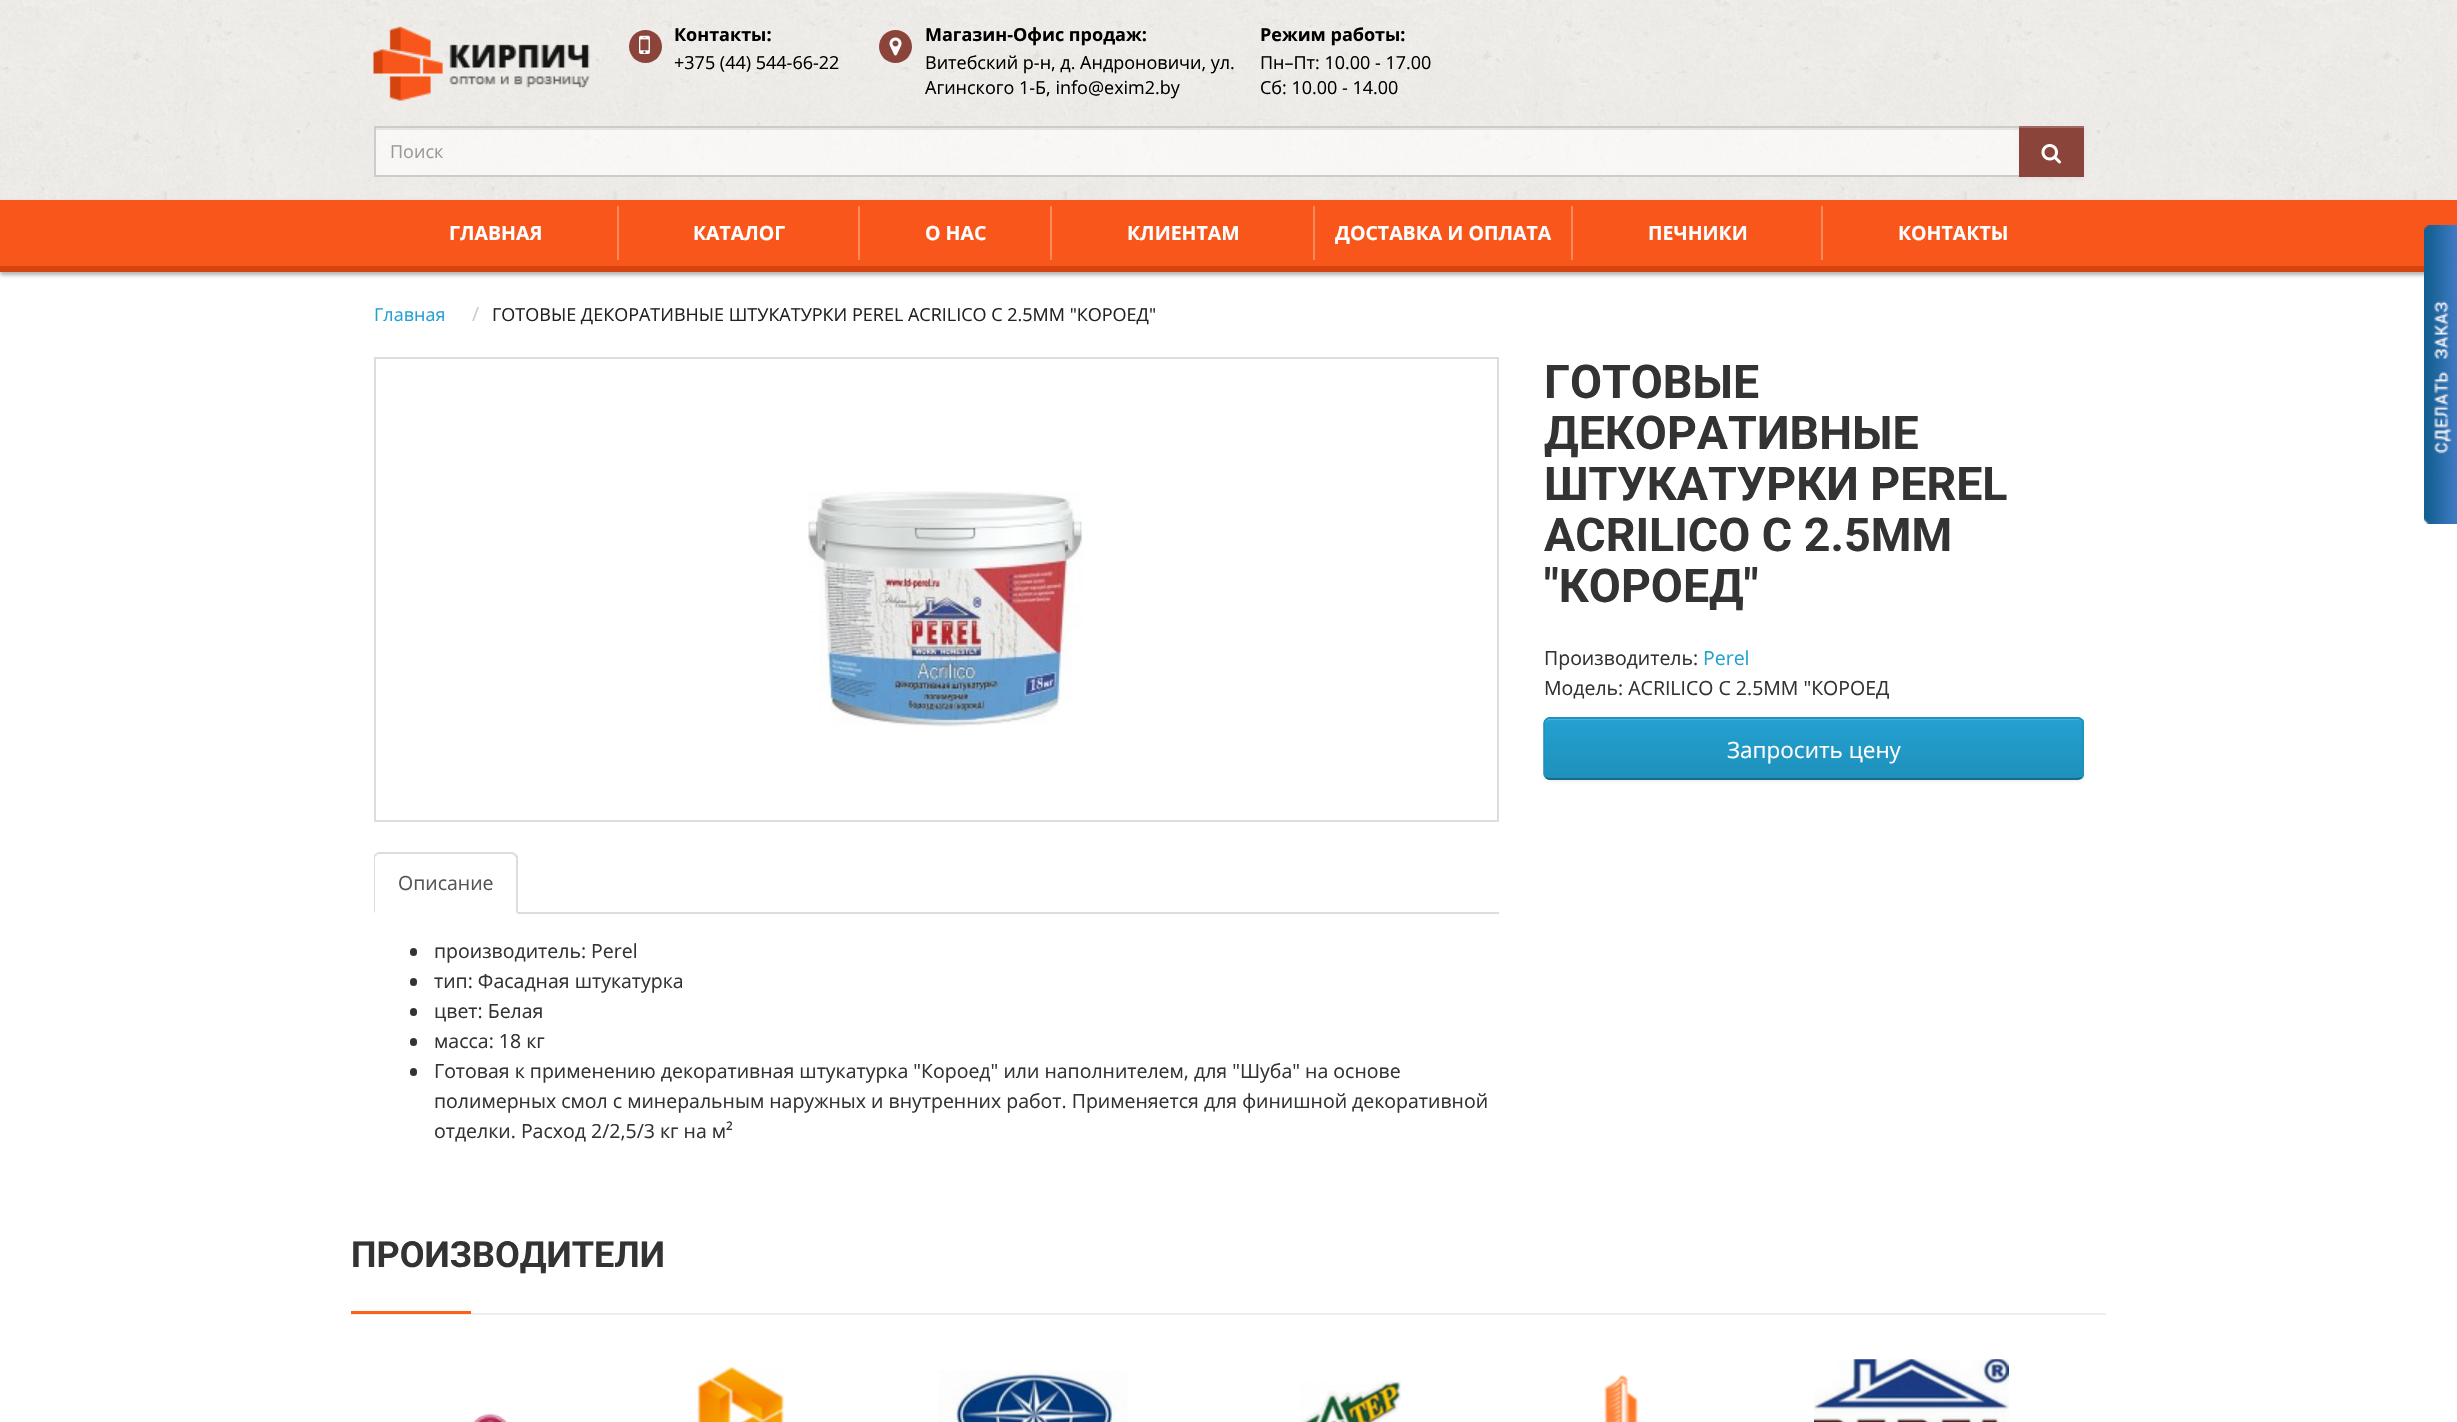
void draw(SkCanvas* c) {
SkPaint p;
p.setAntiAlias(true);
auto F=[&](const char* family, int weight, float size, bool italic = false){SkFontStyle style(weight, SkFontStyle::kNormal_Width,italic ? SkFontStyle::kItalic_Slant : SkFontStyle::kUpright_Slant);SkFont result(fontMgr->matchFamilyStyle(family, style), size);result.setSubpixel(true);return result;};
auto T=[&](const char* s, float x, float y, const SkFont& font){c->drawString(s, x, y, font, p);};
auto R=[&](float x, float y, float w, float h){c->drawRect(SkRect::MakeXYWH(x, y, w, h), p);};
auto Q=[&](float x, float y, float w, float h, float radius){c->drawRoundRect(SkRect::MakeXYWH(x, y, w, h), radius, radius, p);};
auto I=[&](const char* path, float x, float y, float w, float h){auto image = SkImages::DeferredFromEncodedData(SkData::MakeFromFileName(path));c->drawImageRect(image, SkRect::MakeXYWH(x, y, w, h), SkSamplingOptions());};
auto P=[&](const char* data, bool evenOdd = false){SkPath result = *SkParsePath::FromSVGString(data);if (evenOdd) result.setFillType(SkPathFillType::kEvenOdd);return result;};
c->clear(0xffffffff);
p.setColor(0xffebe9e6);
R(0,199,2457,1);
I("1.png",0,0,2457,200);
I("2.png",373,26,217,75);
p.setColor(0xff8b4439);
c->drawCircle(645.5,46.5,16.5,p);
I("3.png",639,35,11,19);
auto f1 = F("Open Sans",700,18);
p.setColor(0xff000000);
T("Контакты:",674,41,f1);
auto f2 = F("Open Sans",400,18);
T("+375 (44) 544-66-22",674,69,f2);
p.setColor(0xff8b4439);
c->drawCircle(895.5,46.5,16.5,p);
I("4.png",889,37,13,19);
p.setColor(0xff000000);
T("Магазин-Офис продаж:",925,41,f1);
T("Витебский р-н, д. Андроновичи, ул.",925,69,f2);
T("Агинского 1-Б, info@exim2.by",925,94,f2);
T("Режим работы:",1260,41,f1);
T("Пн–Пт: 10.00 - 17.00",1260,69,f2);
T("Сб: 10.00 - 14.00",1260,94,f2);
p.setColor(0x99ffffff);
R(376,128,1643,47);
p.setColor(0x12000000);
R(375,128,1644,2);
p.setStroke(true);
p.setStrokeWidth(2);
p.setColor(0xffcccccc);
c->drawRect(SkRect::MakeXYWH(375,127,1645,49),p);
p.setStroke(false);
p.setColor(0xff999999);
T("Поиск",390,158,f2);
p.setColor(0x0d000000);
p.setMaskFilter(SkMaskFilter::MakeBlur(kNormal_SkBlurStyle, 1.5));
c->drawRect(SkRect::MakeXYWH(2019,128,65,51),p);
p.setMaskFilter(nullptr);
p.setColor(0xff8b4439);
R(2019,128,65,49);
p.setColor(0xffa26961);
R(2019,126,65,2);
I("5.png",2041,144,20,20);
p.setColor(0x4d000000);
p.setMaskFilter(SkMaskFilter::MakeBlur(kNormal_SkBlurStyle, 2));
c->drawRect(SkRect::MakeXYWH(0,203,2457,72),p);
p.setMaskFilter(nullptr);
p.setColor(0xfff9561c);
R(0,200,2457,66);
p.setColor(0xffd5440f);
R(0,266,2424,6);
auto f3 = F("Open Sans",700,19.5);
p.setColor(0xffffffff);
T("ГЛАВНАЯ",449,240,f3);
p.setColor(0xfffb8960);
R(617,206,2,54);
p.setColor(0xffffffff);
T("КАТАЛОГ",693,240,f3);
p.setColor(0xfffb8960);
R(858,206,2,54);
p.setColor(0xffffffff);
T("О НАС",925,240,f3);
p.setColor(0xfffb8960);
R(1050,206,2,54);
p.setColor(0xffffffff);
T("КЛИЕНТАМ",1127,240,f3);
p.setColor(0xfffb8960);
R(1313,206,2,54);
p.setColor(0xffffffff);
T("ДОСТАВКА И ОПЛАТА",1335,240,f3);
p.setColor(0xfffb8960);
R(1571,206,2,54);
p.setColor(0xffffffff);
T("ПЕЧНИКИ",1648,240,f3);
p.setColor(0xfffb8960);
R(1821,206,2,54);
p.setColor(0xffffffff);
T("КОНТАКТЫ",1898,240,f3);
p.setColor(0xff23a1d1);
T("Главная",374,321,f2);
auto f4 = F("Open Sans",400,19.5);
p.setColor(0xffcccccc);
T("/",472,321,f4);
p.setColor(0xff222222);
T("ГОТОВЫЕ ДЕКОРАТИВНЫЕ ШТУКАТУРКИ PEREL ACRILICO C 2.5ММ \"КОРОЕД\"",492,321,f2);
auto f5 = F("Roboto",700,46.5);
p.setColor(0xff333333);
T("ГОТОВЫЕ",1544,398,f5);
T("ДЕКОРАТИВНЫЕ",1544,449,f5);
T("ШТУКАТУРКИ PEREL",1544,500,f5);
T("ACRILICO C 2.5ММ",1544,551,f5);
T("\"КОРОЕД\"",1544,602,f5);
T("Производитель:",1544,665,f4);
p.setColor(0xff23a1d1);
T("Perel",1703,665,f4);
p.setColor(0xff333333);
T("Модель: ACRILICO C 2.5ММ \"КОРОЕД",1544,695,f4);
p.setColor(0x0d000000);
p.setMaskFilter(SkMaskFilter::MakeBlur(kNormal_SkBlurStyle, 1.5));
c->drawRoundRect(SkRect::MakeXYWH(1544,719,540,63),6,6,p);
p.setMaskFilter(nullptr);
p.setColor(0xff229ac8);
Q(1544,717,540,63,6);
c->save();
c->clipPath(P("M1550 717h528c3.5 0 6 2.5 6 6v51c0 3.5-2.5 6-6 6h-528c-3.5 0-6-2.5-6-6v-51c0-3.5 2.5-6 6-6z"),true);
{
const SkColor colors[] = {0xff23a1d1,0xff1f90bb};
const float stops[] = {0,1};
const SkPoint ends[] = {{1814,719}, {1814,779}};
p.setShader(SkGradientShader::MakeLinear(ends, colors, stops, 2, SkTileMode::kClamp));
p.setAlpha(255);
}
R(1544,719,540,60);
c->restore();
p.setShader(nullptr);
p.setColor(0xff4fb4da);
c->drawPath(P("M1550 720h528c2 0 4 2 4 4c0-3-2-5-5-5h-527c-3 0-5 2-5 5c0-2 2-4 5-4z"),p);
p.setStroke(true);
p.setStrokeWidth(1.5);
p.setColor(0xff145e7a);
c->drawPath(P("M2081 777.5c-1 1-2 1.5-3.5 1.5h-528c-1.5 0-2.5-.5-3.5-1.5"),p);
p.setColor(0xff1f90bb);
c->drawPath(P("M1546 777.5c-1-1-2-2-2-3.5v-51c0-1.5 1-2.5 2-3.5c1-1 2-1.5 3.5-1.5h528c1.5 0 2.5 .5 3.5 1.5c1 1 2 2 2 3.5v51c0 1.5-1 2.5-2 3.5"),p);
auto f6 = F("Open Sans",400,22.5);
p.setStroke(false);
p.setColor(0xffffffff);
T("Запросить цену",1727,758,f6);
p.setStroke(true);
p.setStrokeWidth(2);
p.setColor(0xffdddddd);
c->drawRect(SkRect::MakeXYWH(375,358,1123,463),p);
I("6.png",808,491,275,236);
p.setStroke(false);
R(518,912,981,2);
c->drawPath(P("M380 852c-2 0-4 1-5 2l2 1c0-1 2-1 3-1h132l2 1l2-1c-1-1-3-2-4-2z"),p);
c->drawPath(P("M516 854l2 2v58l-2-2v-54l-2-3z"),p);
c->drawPath(P("M375 854c-1 1-1 3-1 4v55l1-1v-55l2-2z"),p);
p.setColor(0xff555555);
T("Описание",398,890,f4);
p.setColor(0xff333333);
Q(410,948,7,8,3.5);
T("производитель: Perel",434,958,f4);
Q(410,978,7,8,3.5);
T("тип: Фасадная штукатурка",434,988,f4);
Q(410,1008,7,8,3.5);
T("цвет: Белая",434,1018,f4);
Q(410,1038,7,8,3.5);
T("масса: 18 кг",434,1048,f4);
Q(410,1068,7,8,3.5);
T("Готовая к применению декоративная штукатурка \"Короед\" или наполнителем, для \"Шуба\" на основе",434,1078,f4);
T("полимерных смол с минеральным наружных и внутренних работ. Применяется для финишной декоративной",434,1108,f4);
T("отделки. Расход 2/2,5/3 кг на м²",434,1138,f4);
I("7.png",2424,225,33,299);
p.setColor(0xffeeeeee);
R(351,1313,1755,2);
auto f7 = F("Roboto",700,36);
p.setColor(0xff333333);
T("ПРОИЗВОДИТЕЛИ",351,1267,f7);
p.setColor(0xffff6019);
R(351,1311,120,3);
I("8.png",473,1413,35,9);
I("9.png",697,1366,88,56);
I("10.png",938,1370,190,52);
I("11.png",1300,1380,101,42);
I("12.png",1604,1374,35,48);
I("13.png",1814,1359,195,63);
}
